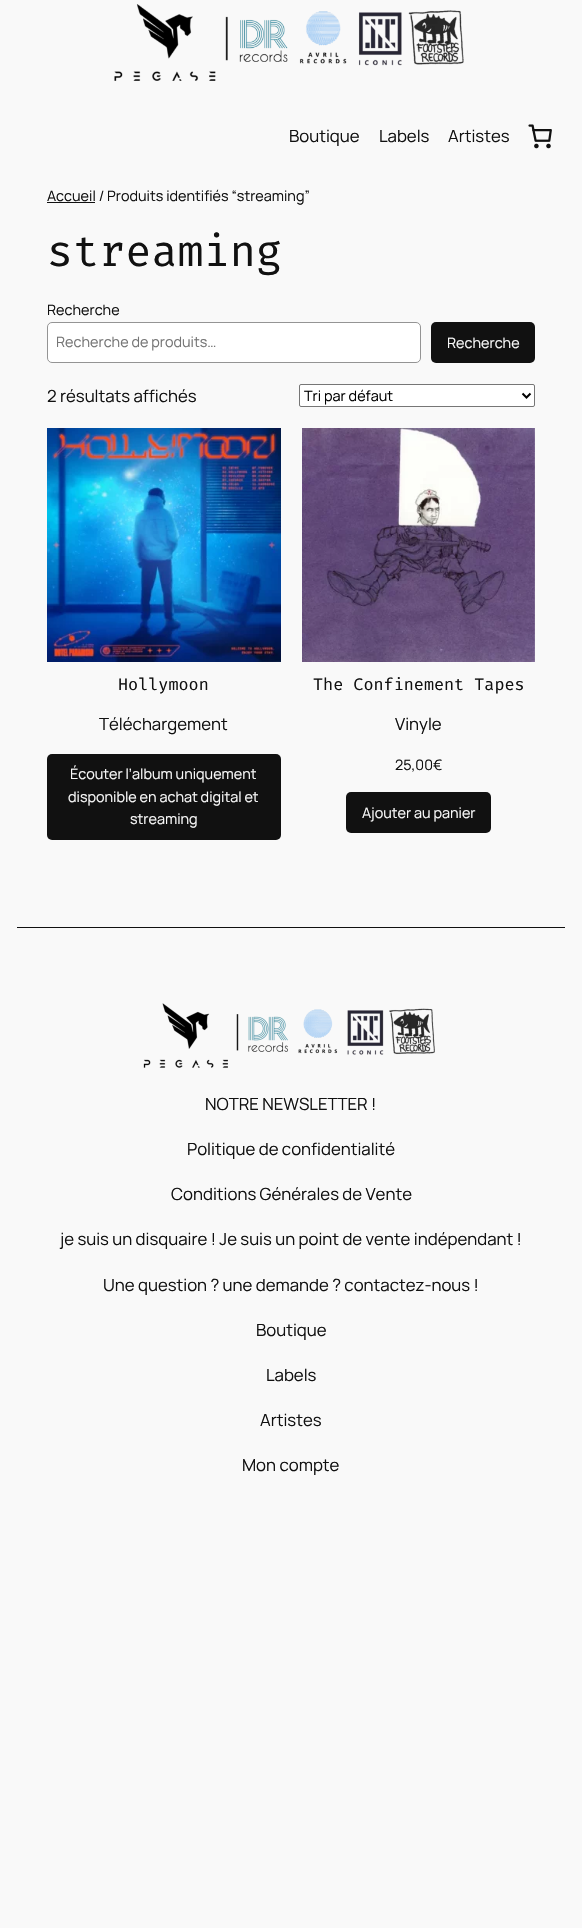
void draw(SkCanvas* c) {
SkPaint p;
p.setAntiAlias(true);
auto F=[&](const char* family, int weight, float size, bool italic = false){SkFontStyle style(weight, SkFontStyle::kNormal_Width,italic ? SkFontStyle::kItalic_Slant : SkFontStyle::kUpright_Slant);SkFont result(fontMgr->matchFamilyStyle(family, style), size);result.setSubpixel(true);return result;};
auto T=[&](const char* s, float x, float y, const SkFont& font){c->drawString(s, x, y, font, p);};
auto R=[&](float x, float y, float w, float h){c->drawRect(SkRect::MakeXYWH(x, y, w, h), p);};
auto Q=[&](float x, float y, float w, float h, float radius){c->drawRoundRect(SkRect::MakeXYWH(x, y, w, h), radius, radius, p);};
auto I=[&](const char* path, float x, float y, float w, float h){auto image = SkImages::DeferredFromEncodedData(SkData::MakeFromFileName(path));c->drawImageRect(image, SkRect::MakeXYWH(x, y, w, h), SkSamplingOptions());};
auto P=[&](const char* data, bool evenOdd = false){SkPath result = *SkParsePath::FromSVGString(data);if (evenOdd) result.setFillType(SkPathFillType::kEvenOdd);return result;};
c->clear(0xfff9f9f9);
I("1.png",114,4,350,77);
auto f1 = F("Manrope",200,16.8);
p.setColor(0xff111111);
T("Boutique",289,142,f1);
T("Labels",379,142,f1);
T("Artistes",448,142,f1);
I("2.png",528,124,24,25);
R(47,202,48,1);
auto f2 = F("Manrope",200,14.4);
T("Accueil / Produits identifiés “streaming”",47,201,f2);
auto f3 = F("Fira Code",300,43.5);
T("streaming",47,266,f3);
T("Recherche",47,315,f2);
p.setColor(0xffffffff);
c->drawRoundRect(SkRect::MakeXYWH(47.5,322.5,373,40),4.5,4.5,p);
p.setStroke(true);
p.setStrokeWidth(1);
p.setColor(0xff949494);
c->drawRoundRect(SkRect::MakeXYWH(47.5,322.5,373,40),4.5,4.5,p);
p.setStroke(false);
p.setColor(0xff757575);
T("Recherche de produits…",56,347,f2);
p.setColor(0xff111111);
Q(431,322,104,41,5);
p.setColor(0xfff9f9f9);
T("Recherche",447,348,f2);
p.setColor(0xff111111);
T("2 résultats affichés",47,402,f1);
p.setColor(0xffffffff);
c->drawRoundRect(SkRect::MakeXYWH(299.5,384.5,235,22),1.5,1.5,p);
p.setStroke(true);
p.setColor(0xff767676);
c->drawRoundRect(SkRect::MakeXYWH(299.5,384.5,235,22),1.5,1.5,p);
p.setStrokeWidth(2);
p.setColor(0xff000000);
c->drawPath(P("M522.5 393.5l4 4l4-4"),p);
p.setStroke(false);
T("Tri par défaut",304,401,f2);
I("3.png",47,428,234,234);
auto f4 = F("Fira Code",300,16.8);
p.setColor(0xff111111);
T("Hollymoon",118,690,f4);
T("Téléchargement",99,730,f1);
Q(47,754,234,86,5);
p.setColor(0xfff9f9f9);
T("Écouter l’album uniquement",70,779,f2);
T("disponible en achat digital et",68,802,f2);
T("streaming",130,824,f2);
I("4.png",302,428,233,234);
p.setColor(0xff111111);
T("The Confinement Tapes",313,690,f4);
T("Vinyle",395,730,f1);
T("25,00€",395,770,f2);
Q(346,792,145,41,5);
p.setColor(0xfff9f9f9);
T("Ajouter au panier",362,818,f2);
p.setColor(0xff111111);
R(17,927,548,1);
I("5.png",143,1003,292,65);
T("NOTRE NEWSLETTER !",205,1110,f1);
T("Politique de confidentialité",187,1155,f1);
T("Conditions Générales de Vente",171,1200,f1);
T("je suis un disquaire ! Je suis un point de vente indépendant !",60,1245,f1);
T("Une question ? une demande ? contactez-nous !",103,1291,f1);
T("Boutique",256,1336,f1);
T("Labels",266,1381,f1);
T("Artistes",260,1426,f1);
T("Mon compte",242,1471,f1);
}
